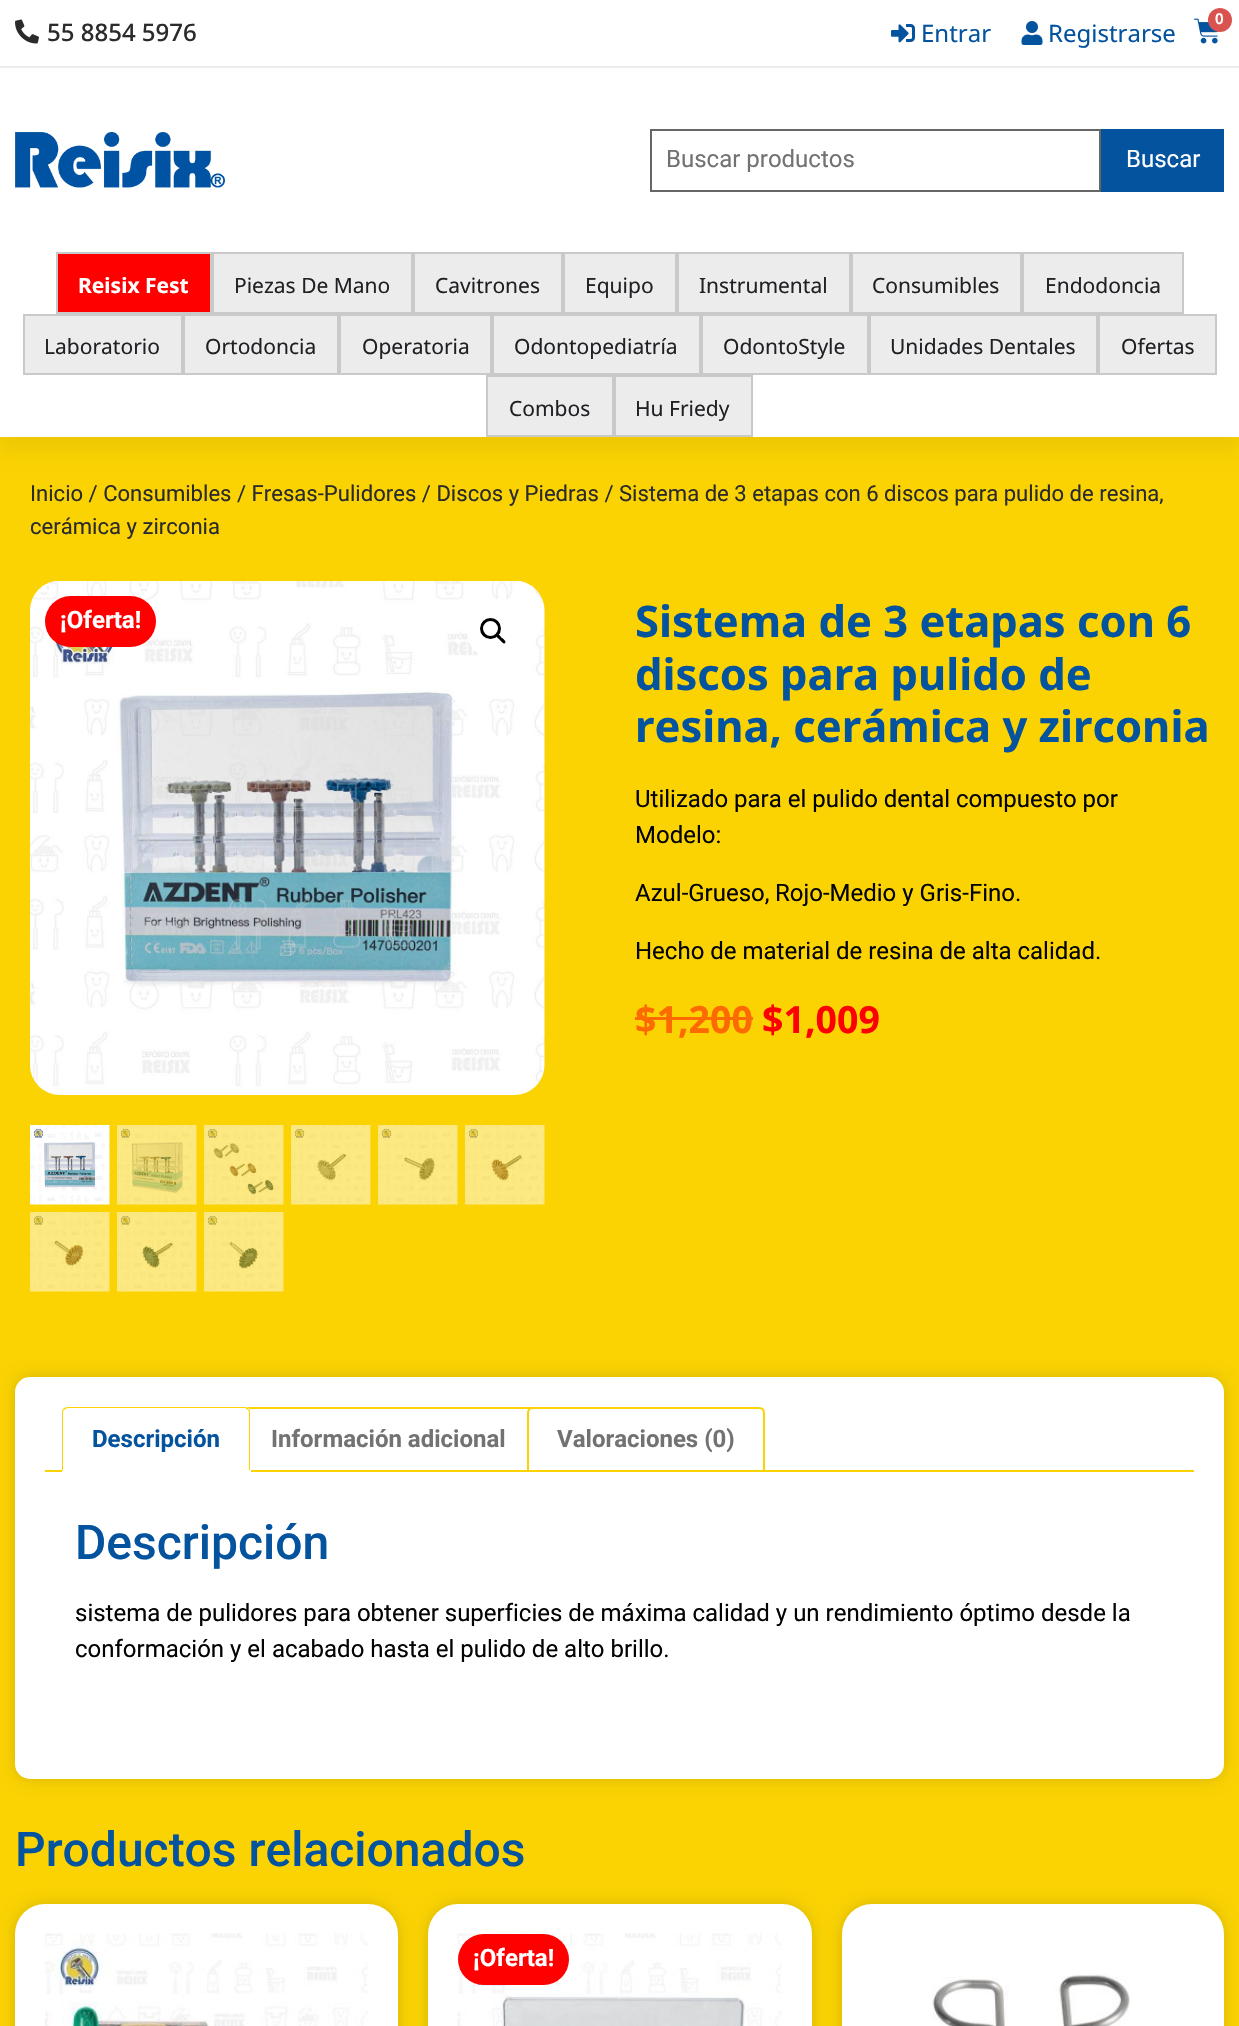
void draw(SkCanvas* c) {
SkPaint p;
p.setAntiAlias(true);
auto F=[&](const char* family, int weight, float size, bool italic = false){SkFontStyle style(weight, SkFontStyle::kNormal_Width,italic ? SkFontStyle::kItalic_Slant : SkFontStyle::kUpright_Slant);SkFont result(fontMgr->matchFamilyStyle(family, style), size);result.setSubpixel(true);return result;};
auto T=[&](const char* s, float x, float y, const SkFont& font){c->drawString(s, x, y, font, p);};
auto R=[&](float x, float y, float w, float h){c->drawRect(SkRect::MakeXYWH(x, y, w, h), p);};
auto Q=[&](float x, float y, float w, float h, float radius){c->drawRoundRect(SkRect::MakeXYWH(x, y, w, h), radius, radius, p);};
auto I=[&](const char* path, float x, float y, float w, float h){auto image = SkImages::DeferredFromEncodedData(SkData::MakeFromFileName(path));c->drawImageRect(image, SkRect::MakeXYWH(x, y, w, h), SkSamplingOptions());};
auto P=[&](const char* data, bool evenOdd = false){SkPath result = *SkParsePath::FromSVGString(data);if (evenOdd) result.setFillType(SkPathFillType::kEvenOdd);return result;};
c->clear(0xfffbd303);
p.setColor(0xffffffff);
R(0,0,1239,66);
p.setColor(0xffececec);
R(0,66,1239,2);
I("1.png",15,19,24,25);
auto f1 = F("Noto Sans",500,24);
p.setColor(0xff2b2b2b);
T("55 8854 5976",47,41,f1);
I("2.png",1194,18,25,26);
p.setColor(0xffd9534f);
c->drawCircle(1220,20,12,p);
auto f2 = F("Noto Sans",600,15);
p.setColor(0xffffffff);
T("0",1215,24,f2);
I("3.png",891,24,24,19);
auto f3 = F("Noto Sans",400,24);
p.setColor(0xff04539e);
T("Entrar",921,42,f3);
I("4.png",1021,21,22,24);
T("Registrarse",1048,42,f3);
p.setColor(0x0d000000);
p.setMaskFilter(SkMaskFilter::MakeBlur(kNormal_SkBlurStyle, 7.5));
c->drawRect(SkRect::MakeXYWH(0,267,1239,185),p);
p.setMaskFilter(nullptr);
p.setColor(0xffffffff);
R(0,68,1239,369);
I("5.png",15,132,210,56);
p.setStroke(true);
p.setStrokeWidth(2);
p.setColor(0xff666666);
c->drawRect(SkRect::MakeXYWH(651,130,449,61),p);
auto f4 = F("Roboto",400,24);
p.setStroke(false);
p.setColor(0xff727272);
T("Buscar productos",666,167,f4);
p.setColor(0xff04539e);
R(1101,129,123,63);
p.setColor(0xffffffff);
T("Buscar",1126,167,f4);
p.setColor(0xffff0000);
c->drawRect(SkRect::MakeXYWH(57,253,154,60),p);
p.setStroke(true);
p.setColor(0xffc9c9c9);
c->drawRect(SkRect::MakeXYWH(57,253,154,60),p);
auto f5 = F("Noto Sans",700,21);
p.setStroke(false);
p.setColor(0xffffffff);
T("Reisix Fest",78,293,f5);
p.setColor(0xffececec);
c->drawRect(SkRect::MakeXYWH(213,253,199,60),p);
p.setStroke(true);
p.setColor(0xffc9c9c9);
c->drawRect(SkRect::MakeXYWH(213,253,199,60),p);
auto f6 = F("Noto Sans",400,21);
p.setStroke(false);
p.setColor(0xff1f2124);
T("Piezas De Mano",234,293,f6);
p.setColor(0xffececec);
c->drawRect(SkRect::MakeXYWH(414,253,148,60),p);
p.setStroke(true);
p.setColor(0xffc9c9c9);
c->drawRect(SkRect::MakeXYWH(414,253,148,60),p);
p.setStroke(false);
p.setColor(0xff1f2124);
T("Cavitrones",435,293,f6);
p.setColor(0xffececec);
c->drawRect(SkRect::MakeXYWH(564,253,112,60),p);
p.setStroke(true);
p.setColor(0xffc9c9c9);
c->drawRect(SkRect::MakeXYWH(564,253,112,60),p);
p.setStroke(false);
p.setColor(0xff1f2124);
T("Equipo",585,293,f6);
p.setColor(0xffececec);
c->drawRect(SkRect::MakeXYWH(678,253,172,60),p);
p.setStroke(true);
p.setColor(0xffc9c9c9);
c->drawRect(SkRect::MakeXYWH(678,253,172,60),p);
p.setStroke(false);
p.setColor(0xff1f2124);
T("Instrumental",699,293,f6);
p.setColor(0xffececec);
c->drawRect(SkRect::MakeXYWH(852,253,169,60),p);
p.setStroke(true);
p.setColor(0xffc9c9c9);
c->drawRect(SkRect::MakeXYWH(852,253,169,60),p);
p.setStroke(false);
p.setColor(0xff1f2124);
T("Consumibles",872,293,f6);
p.setColor(0xffececec);
c->drawRect(SkRect::MakeXYWH(1023,253,160,60),p);
p.setStroke(true);
p.setColor(0xffc9c9c9);
c->drawRect(SkRect::MakeXYWH(1023,253,160,60),p);
p.setStroke(false);
p.setColor(0xff1f2124);
T("Endodoncia",1045,293,f6);
p.setColor(0xffececec);
c->drawRect(SkRect::MakeXYWH(24,315,158,59),p);
p.setStroke(true);
p.setColor(0xffc9c9c9);
c->drawRect(SkRect::MakeXYWH(24,315,158,59),p);
p.setStroke(false);
p.setColor(0xff1f2124);
T("Laboratorio",44,354,f6);
p.setColor(0xffececec);
c->drawRect(SkRect::MakeXYWH(184,315,154,59),p);
p.setStroke(true);
p.setColor(0xffc9c9c9);
c->drawRect(SkRect::MakeXYWH(184,315,154,59),p);
p.setStroke(false);
p.setColor(0xff1f2124);
T("Ortodoncia",205,354,f6);
p.setColor(0xffececec);
c->drawRect(SkRect::MakeXYWH(340,315,151,59),p);
p.setStroke(true);
p.setColor(0xffc9c9c9);
c->drawRect(SkRect::MakeXYWH(340,315,151,59),p);
p.setStroke(false);
p.setColor(0xff1f2124);
T("Operatoria",362,354,f6);
p.setColor(0xffececec);
c->drawRect(SkRect::MakeXYWH(493,315,207,59),p);
p.setStroke(true);
p.setColor(0xffc9c9c9);
c->drawRect(SkRect::MakeXYWH(493,315,207,59),p);
p.setStroke(false);
p.setColor(0xff1f2124);
T("Odontopediatría",514,354,f6);
p.setColor(0xffececec);
c->drawRect(SkRect::MakeXYWH(702,315,166,59),p);
p.setStroke(true);
p.setColor(0xffc9c9c9);
c->drawRect(SkRect::MakeXYWH(702,315,166,59),p);
p.setStroke(false);
p.setColor(0xff1f2124);
T("OdontoStyle",723,354,f6);
p.setColor(0xffececec);
c->drawRect(SkRect::MakeXYWH(870,315,227,59),p);
p.setStroke(true);
p.setColor(0xffc9c9c9);
c->drawRect(SkRect::MakeXYWH(870,315,227,59),p);
p.setStroke(false);
p.setColor(0xff1f2124);
T("Unidades Dentales",890,354,f6);
p.setColor(0xffececec);
c->drawRect(SkRect::MakeXYWH(1099,315,117,59),p);
p.setStroke(true);
p.setColor(0xffc9c9c9);
c->drawRect(SkRect::MakeXYWH(1099,315,117,59),p);
p.setStroke(false);
p.setColor(0xff1f2124);
T("Ofertas",1121,354,f6);
p.setColor(0xffececec);
c->drawRect(SkRect::MakeXYWH(487,376,126,60),p);
p.setStroke(true);
p.setColor(0xffc9c9c9);
c->drawRect(SkRect::MakeXYWH(487,376,126,60),p);
p.setStroke(false);
p.setColor(0xff1f2124);
T("Combos",509,416,f6);
p.setColor(0xffececec);
c->drawRect(SkRect::MakeXYWH(615,376,137,60),p);
p.setStroke(true);
p.setColor(0xffc9c9c9);
c->drawRect(SkRect::MakeXYWH(615,376,137,60),p);
p.setStroke(false);
p.setColor(0xff1f2124);
T("Hu Friedy",635,416,f6);
auto f7 = F("Roboto",400,22.08);
p.setColor(0xff2b2b2b);
T("Inicio / Consumibles / Fresas-Pulidores / Discos y Piedras / Sistema de 3 etapas con 6 discos para pulido de resina,",30,501,f7);
T("cerámica y zirconia",30,534,f7);
I("6.png",30,581,515,514);
p.setColor(0xffffffff);
c->drawCircle(494,632,27,p);
p.setStroke(true);
p.setStrokeWidth(3);
p.setColor(0xff000000);
c->drawCircle(490.5,628.5,9,p);
p.setStroke(false);
c->drawPath(P("M497 634.5c1.5-1.5 4 2.5 5 3.5c1 .5 5 3.5 3 5c-1.5 2-4-2-5-3c-1-1-5-3.5-3-5.5z"),p);
I("7.png",30,1125,80,80);
I("8.png",117,1125,80,80);
I("9.png",204,1125,80,80);
I("10.png",291,1125,80,80);
I("11.png",378,1125,80,80);
I("12.png",465,1125,80,80);
I("13.png",30,1212,80,80);
I("14.png",117,1212,80,80);
I("15.png",204,1212,80,80);
p.setColor(0xffff0000);
Q(45,596,111,51,25.5);
auto f8 = F("Roboto",700,24);
p.setColor(0xffffffff);
T("¡Oferta!",60,628,f8);
auto f9 = F("Noto Sans",700,43.5);
p.setColor(0xff04539e);
T("Sistema de 3 etapas con 6",635,637,f9);
T("discos para pulido de",635,690,f9);
T("resina, cerámica y zirconia",635,742,f9);
p.setColor(0xff030303);
T("Utilizado para el pulido dental compuesto por",635,807,f4);
T("Modelo:",635,843,f4);
T("Azul-Grueso,",635,901,f4);
T("Rojo-Medio y Gris-Fino.",775,901,f4);
T("Hecho de material de resina de alta calidad.",635,959,f4);
auto f10 = F("Noto Sans",700,37.5);
p.setColor(0xfffd6a02);
T("$1,200",635,1033,f10);
R(635,1017,118,3);
p.setColor(0xffff0000);
T("$1,009",762,1033,f10);
p.setColor(0x26000000);
p.setMaskFilter(SkMaskFilter::MakeBlur(kNormal_SkBlurStyle, 7.5));
c->drawRoundRect(SkRect::MakeXYWH(15,1377,1209,402),15,15,p);
p.setMaskFilter(nullptr);
p.setColor(0xffffffff);
Q(15,1377,1209,402,15);
p.setColor(0xfffbd303);
R(45,1470,1149,2);
p.setColor(0xffffffff);
c->drawPath(P("M248 1408h282c3 0 5 2 5 5v58h-292v-58c0-3 2-5 5-5z"),p);
p.setStroke(true);
p.setStrokeWidth(2);
p.setColor(0xfffbd303);
c->drawPath(P("M248 1408h282c3 0 5 2 5 5v58h-292v-58c0-3 2-5 5-5z"),p);
p.setStroke(false);
p.setColor(0xffffffff);
c->drawPath(P("M68 1407h177c3.5 0 6 2.5 6 6v59h-189v-59c0-3.5 2.5-6 6-6z"),p);
p.setColor(0xfffbd303);
c->drawPath(P("M68 1407c-2 0-4 1-5 2l1 1c1-1 3-2 4-2h177l3 2l1-1c-1-1-3-2-5-2z"),p);
c->drawPath(P("M249 1409c1 1 1 3 1 4v58l-1-1v-57c0-1 0-2-1-3z"),p);
p.setColor(0xffffffff);
c->drawPath(P("M62 1472l1-2h186l1 1v1z"),p);
p.setColor(0xfffbd303);
c->drawPath(P("M63 1409c-1 1-1 3-1 4v58l1-1v-57c0-1 0-2 1-3z"),p);
p.setColor(0xff04539e);
T("Descripción",92,1447,f8);
p.setColor(0xff727272);
T("Información adicional",271,1447,f8);
p.setColor(0xffffffff);
c->drawPath(P("M533 1408h226c3 0 5 2 5 5v58h-236v-58c0-3 2-5 5-5z"),p);
p.setStroke(true);
p.setColor(0xfffbd303);
c->drawPath(P("M533 1408h226c3 0 5 2 5 5v58h-236v-58c0-3 2-5 5-5z"),p);
p.setStroke(false);
p.setColor(0xff727272);
T("Valoraciones (0)",557,1447,f8);
auto f11 = F("Roboto",500,48);
p.setColor(0xff04539e);
T("Descripción",75,1559,f11);
p.setColor(0xff030303);
T("sistema de pulidores para obtener superficies de máxima calidad y un rendimiento óptimo desde la",75,1621,f4);
T("conformación y el acabado hasta el pulido de alto brillo.",75,1657,f4);
p.setColor(0xff04539e);
T("Productos relacionados",15,1866,f11);
p.setColor(0x26000000);
p.setMaskFilter(SkMaskFilter::MakeBlur(kNormal_SkBlurStyle, 7.5));
c->drawRoundRect(SkRect::MakeXYWH(15,1904,383,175),30,30,p);
p.setMaskFilter(nullptr);
p.setColor(0xffffffff);
Q(15,1904,383,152,30);
I("16.png",45,1933,323,93);
p.setColor(0x26000000);
p.setMaskFilter(SkMaskFilter::MakeBlur(kNormal_SkBlurStyle, 7.5));
c->drawRoundRect(SkRect::MakeXYWH(428,1904,384,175),30,30,p);
p.setMaskFilter(nullptr);
p.setColor(0xffffffff);
Q(428,1904,384,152,30);
I("17.png",457,1933,325,93);
p.setColor(0xffff0000);
Q(458,1934,111,51,25.5);
p.setColor(0xffffffff);
T("¡Oferta!",473,1966,f8);
p.setColor(0x26000000);
p.setMaskFilter(SkMaskFilter::MakeBlur(kNormal_SkBlurStyle, 7.5));
c->drawRoundRect(SkRect::MakeXYWH(842,1904,382,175),30,30,p);
p.setMaskFilter(nullptr);
p.setColor(0xffffffff);
Q(842,1904,382,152,30);
I("18.png",932,1973,198,53);
}
